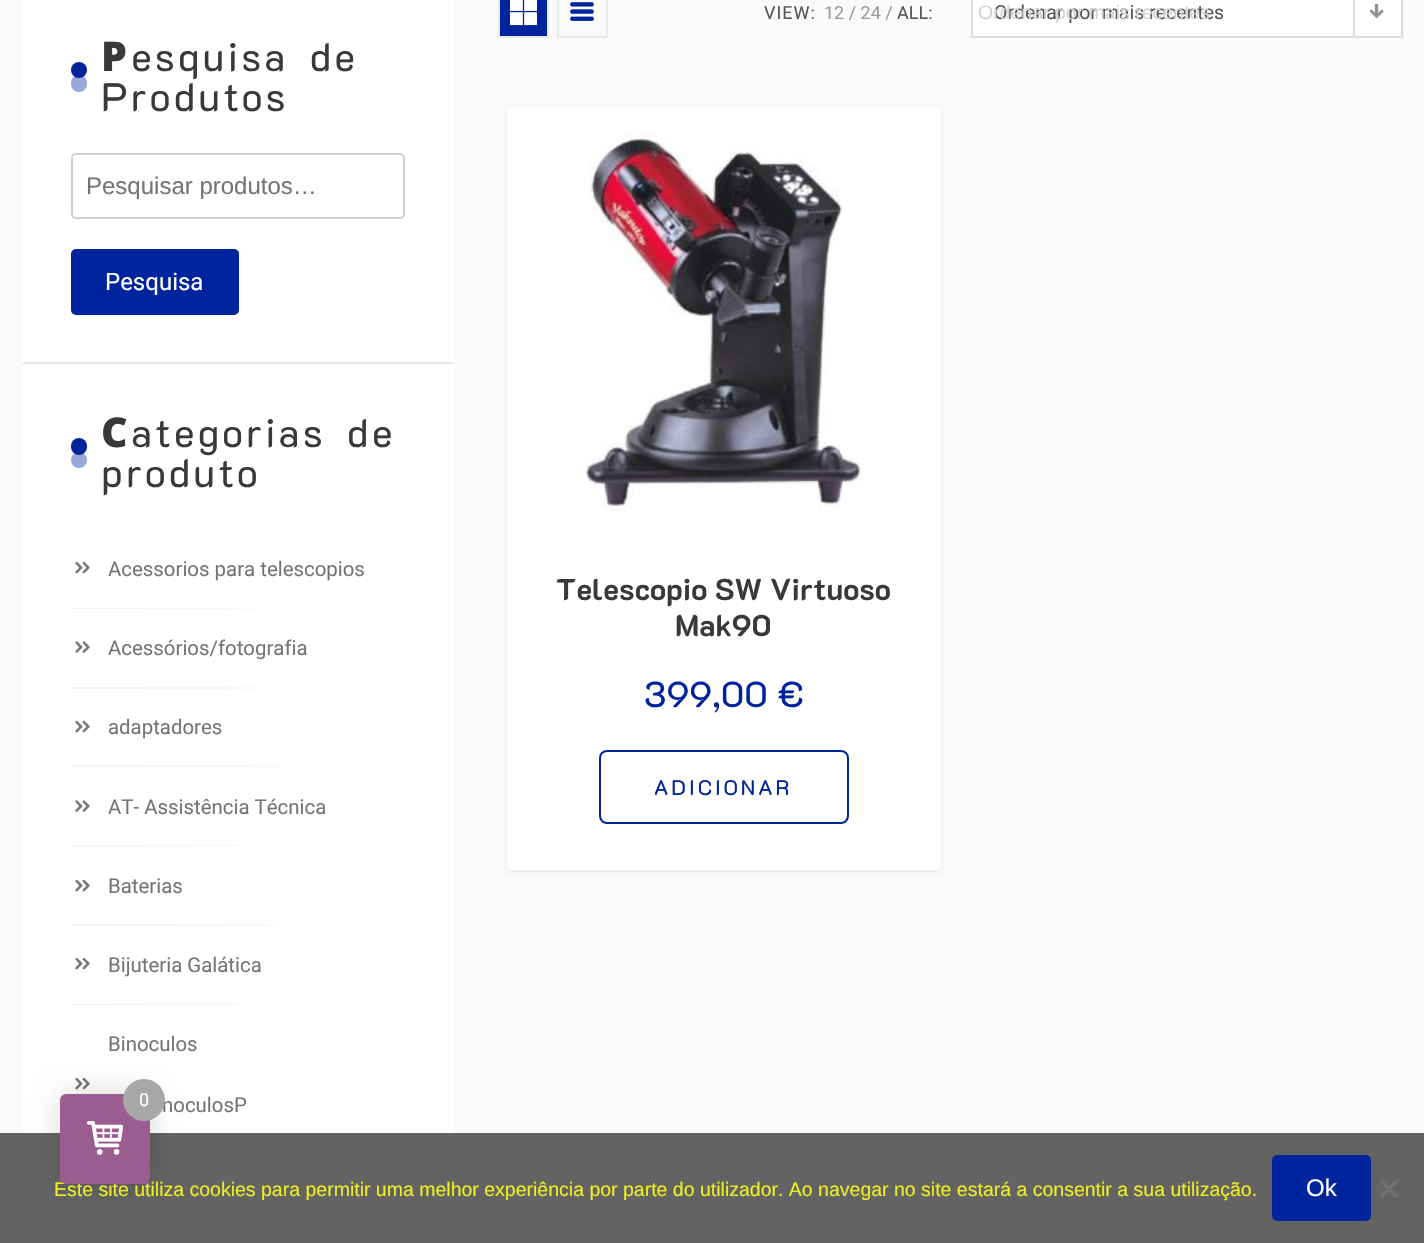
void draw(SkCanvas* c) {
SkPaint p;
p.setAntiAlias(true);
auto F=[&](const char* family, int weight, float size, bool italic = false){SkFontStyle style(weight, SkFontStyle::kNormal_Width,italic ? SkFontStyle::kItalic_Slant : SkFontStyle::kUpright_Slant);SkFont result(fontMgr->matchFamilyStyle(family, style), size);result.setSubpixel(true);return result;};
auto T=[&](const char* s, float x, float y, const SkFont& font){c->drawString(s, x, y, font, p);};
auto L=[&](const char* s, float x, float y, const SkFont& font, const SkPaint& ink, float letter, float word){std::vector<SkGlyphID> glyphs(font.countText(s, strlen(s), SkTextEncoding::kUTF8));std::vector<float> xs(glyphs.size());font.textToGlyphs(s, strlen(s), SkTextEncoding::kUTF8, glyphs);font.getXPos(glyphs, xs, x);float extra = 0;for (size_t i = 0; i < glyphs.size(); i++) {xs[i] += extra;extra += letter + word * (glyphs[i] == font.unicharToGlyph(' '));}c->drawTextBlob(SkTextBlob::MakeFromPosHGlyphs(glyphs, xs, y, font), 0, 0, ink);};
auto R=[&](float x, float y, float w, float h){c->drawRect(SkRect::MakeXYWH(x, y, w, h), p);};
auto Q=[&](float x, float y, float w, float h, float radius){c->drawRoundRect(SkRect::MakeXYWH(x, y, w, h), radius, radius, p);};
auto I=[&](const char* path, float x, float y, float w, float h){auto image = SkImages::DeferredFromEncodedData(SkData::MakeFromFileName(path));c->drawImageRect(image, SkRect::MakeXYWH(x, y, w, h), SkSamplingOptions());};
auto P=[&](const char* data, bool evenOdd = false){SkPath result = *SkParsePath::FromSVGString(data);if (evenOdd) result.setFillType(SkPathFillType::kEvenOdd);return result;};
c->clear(0xfffafafa);
p.setColor(0xffffffff);
R(23,0,430,1133);
p.setColor(0xff99a8d8);
Q(71,75,16,17,8);
p.setColor(0xff00249e);
c->drawCircle(79,70,8,p);
auto f1 = F("Noto Sans",900,41);
p.setColor(0xff3a3939);
L("P",101,71,f1,p,3,0);
auto f2 = F("K2D",400,39.5);
L("esquisa de",131,71,f2,p,3,8);
L("Produtos",101,111,f2,p,3,0);
p.setStroke(true);
p.setStrokeWidth(2);
p.setColor(0xffcfcfcf);
c->drawRoundRect(SkRect::MakeXYWH(72,154,332,64),4,4,p);
auto f3 = F("Liberation Sans",400,24);
p.setStroke(false);
p.setColor(0xff757575);
T("Pesquisar produtos…",86,194,f3);
p.setColor(0xff00249e);
c->drawRoundRect(SkRect::MakeXYWH(72,250,166,64),4,4,p);
p.setStroke(true);
c->drawRoundRect(SkRect::MakeXYWH(72,250,166,64),4,4,p);
auto f4 = F("Roboto",400,24);
p.setStroke(false);
p.setColor(0xffffffff);
T("Pesquisa",105,290,f4);
p.setColor(0xffe6e6e6);
R(23,362,430,2);
p.setColor(0xff99a8d8);
c->drawCircle(79,460,8,p);
p.setColor(0xff00249e);
Q(71,438,16,17,8);
p.setColor(0xff3a3939);
L("C",101,447,f1,p,3,0);
L("ategorias de",131,447,f2,p,3,8);
L("produto",101,487,f2,p,3,0);
I("1.png",75,561,15,13);
auto f5 = F("Roboto",400,20.4);
p.setColor(0xff757575);
T("Acessorios para telescopios",108,576,f5);
{
const SkColor colors[] = {0xffd6dae2,0xffffffff};
const float stops[] = {0,.7};
SkMatrix m = SkMatrix::Translate(71,608).preScale(473,1.1);
p.setShader(SkGradientShader::MakeRadial({0, 0}, 1, colors, stops, 2, SkTileMode::kClamp, 0, &m));
p.setAlpha(255);
}
R(71,608,224,1);
I("2.png",75,641,15,12);
p.setShader(nullptr);
p.setColor(0xff757575);
T("Acessórios/fotografia",108,655,f5);
{
const SkColor colors[] = {0xffd6dae2,0xffffffff};
const float stops[] = {0,.7};
SkMatrix m = SkMatrix::Translate(71,688).preScale(473,1.1);
p.setShader(SkGradientShader::MakeRadial({0, 0}, 1, colors, stops, 2, SkTileMode::kClamp, 0, &m));
p.setAlpha(255);
}
R(71,687,224,2);
I("1.png",75,720,15,13);
p.setShader(nullptr);
p.setColor(0xff757575);
T("adaptadores",108,734,f5);
{
const SkColor colors[] = {0xffd6dae2,0xffffffff};
const float stops[] = {0,.7};
SkMatrix m = SkMatrix::Translate(71,766).preScale(473,1.1);
p.setShader(SkGradientShader::MakeRadial({0, 0}, 1, colors, stops, 2, SkTileMode::kClamp, 0, &m));
p.setAlpha(255);
}
R(71,765,224,2);
I("2.png",75,800,15,12);
p.setShader(nullptr);
p.setColor(0xff757575);
T("AT- Assistência Técnica",108,814,f5);
{
const SkColor colors[] = {0xffd6dae2,0xffffffff};
const float stops[] = {0,.7};
SkMatrix m = SkMatrix::Translate(71,845).preScale(473,1.1);
p.setShader(SkGradientShader::MakeRadial({0, 0}, 1, colors, stops, 2, SkTileMode::kClamp, 0, &m));
p.setAlpha(255);
}
R(71,845,224,1);
I("1.png",75,879,15,13);
p.setShader(nullptr);
p.setColor(0xff757575);
T("Baterias",108,893,f5);
{
const SkColor colors[] = {0xffd6dae2,0xffffffff};
const float stops[] = {0,.7};
SkMatrix m = SkMatrix::Translate(71,925).preScale(473,1.1);
p.setShader(SkGradientShader::MakeRadial({0, 0}, 1, colors, stops, 2, SkTileMode::kClamp, 0, &m));
p.setAlpha(255);
}
R(71,924,224,2);
I("1.png",75,957,15,13);
p.setShader(nullptr);
p.setColor(0xff757575);
T("Bijuteria Galática",108,972,f5);
{
const SkColor colors[] = {0xffd6dae2,0xffffffff};
const float stops[] = {0,.7};
SkMatrix m = SkMatrix::Translate(71,1004).preScale(473,1.1);
p.setShader(SkGradientShader::MakeRadial({0, 0}, 1, colors, stops, 2, SkTileMode::kClamp, 0, &m));
p.setAlpha(255);
}
R(71,1004,224,1);
p.setShader(nullptr);
p.setColor(0xff757575);
T("Binoculos",108,1051,f5);
I("1.png",75,1077,15,13);
T("noculosP",162,1112,f5);
p.setColor(0xff00249e);
c->drawRect(SkRect::MakeXYWH(499,-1,49,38),p);
p.setStroke(true);
p.setColor(0xffeaeaea);
c->drawRect(SkRect::MakeXYWH(499,-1,49,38),p);
I("3.png",510,0,27,26);
c->drawRect(SkRect::MakeXYWH(558,-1,49,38),p);
I("4.png",570,2,24,19);
auto f6 = F("Roboto",400,18);
p.setStroke(false);
p.setColor(0xff555555);
L("VIEW:",764,19,f6,p,1,0);
p.setColor(0xff999999);
T("12 / 24 /",824,19,f6);
p.setColor(0xff555555);
T("ALL:",897,19,f6);
p.setColor(0xffffffff);
c->drawRect(SkRect::MakeXYWH(972,-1,430,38),p);
p.setStroke(true);
p.setColor(0xffdddddd);
c->drawRect(SkRect::MakeXYWH(972,-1,430,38),p);
auto f7 = F("Roboto",400,19.5);
p.setStroke(false);
p.setColor(0xff555555);
T("Ordenar por mais recentes",994,19,f7);
auto f8 = F("Liberation Sans",400,19.5);
p.setColor(0xffd3d3d3);
T("Ordenar por mais recentes",978,19,f8);
p.setColor(0xffdddddd);
R(1353,0,2,36);
I("5.png",1369,3,15,16);
p.setColor(0x0f000000);
p.setMaskFilter(SkMaskFilter::MakeBlur(kNormal_SkBlurStyle, 2));
c->drawRoundRect(SkRect::MakeXYWH(507,108,434,764),5,5,p);
p.setMaskFilter(nullptr);
p.setColor(0xffffffff);
c->drawRoundRect(SkRect::MakeXYWH(508,108,432,761),4,4,p);
p.setStroke(true);
c->drawRoundRect(SkRect::MakeXYWH(508,108,432,761),4,4,p);
I("6.png",578,131,290,381);
auto f9 = F("K2D",700,30);
p.setStroke(false);
p.setColor(0xff3a3939);
T("Telescopio SW Virtuoso",556,600,f9);
T("Mak90",675,636,f9);
auto f10 = F("K2D",400,36);
p.setColor(0xff00249e);
T("399,00 €",644,707,f10);
p.setStroke(true);
c->drawRoundRect(SkRect::MakeXYWH(600,751,248,72),7,7,p);
auto f11 = F("K2D",400,21);
p.setStroke(false);
L("ADICIONAR",654,795,f11,p,3,0);
p.setColor(0xff636363);
R(0,1133,1424,110);
p.setColor(0x26000000);
p.setMaskFilter(SkMaskFilter::MakeBlur(kNormal_SkBlurStyle, 15));
c->drawRoundRect(SkRect::MakeXYWH(60,1094,90,90),6,6,p);
p.setMaskFilter(nullptr);
p.setColor(0xffeeee22);
T("Este site utiliza cookies para permitir uma melhor experiência por parte do utilizador. Ao navegar no site estará a consentir a sua utilização.",54,1196,f8);
p.setColor(0xff9b5c8f);
Q(60,1094,90,90,6);
p.setColor(0xffa7a7a7);
c->drawCircle(144,1100,21,p);
p.setColor(0xffffffff);
T("0",139,1106,f6);
I("7.png",87,1121,37,34);
p.setColor(0xff00249e);
c->drawRoundRect(SkRect::MakeXYWH(1273,1156,97,64),4,4,p);
p.setStroke(true);
c->drawRoundRect(SkRect::MakeXYWH(1273,1156,97,64),4,4,p);
p.setStroke(false);
p.setColor(0xffffffff);
T("Ok",1306,1196,f3);
p.setColor(0xff727272);
c->drawPath(P("M1396 1179.5l2 2.5l-16 16l-2-2.5z"),p);
c->drawPath(P("M1380 1182l2-2.5l16 16l-2 2.5z"),p);
}
